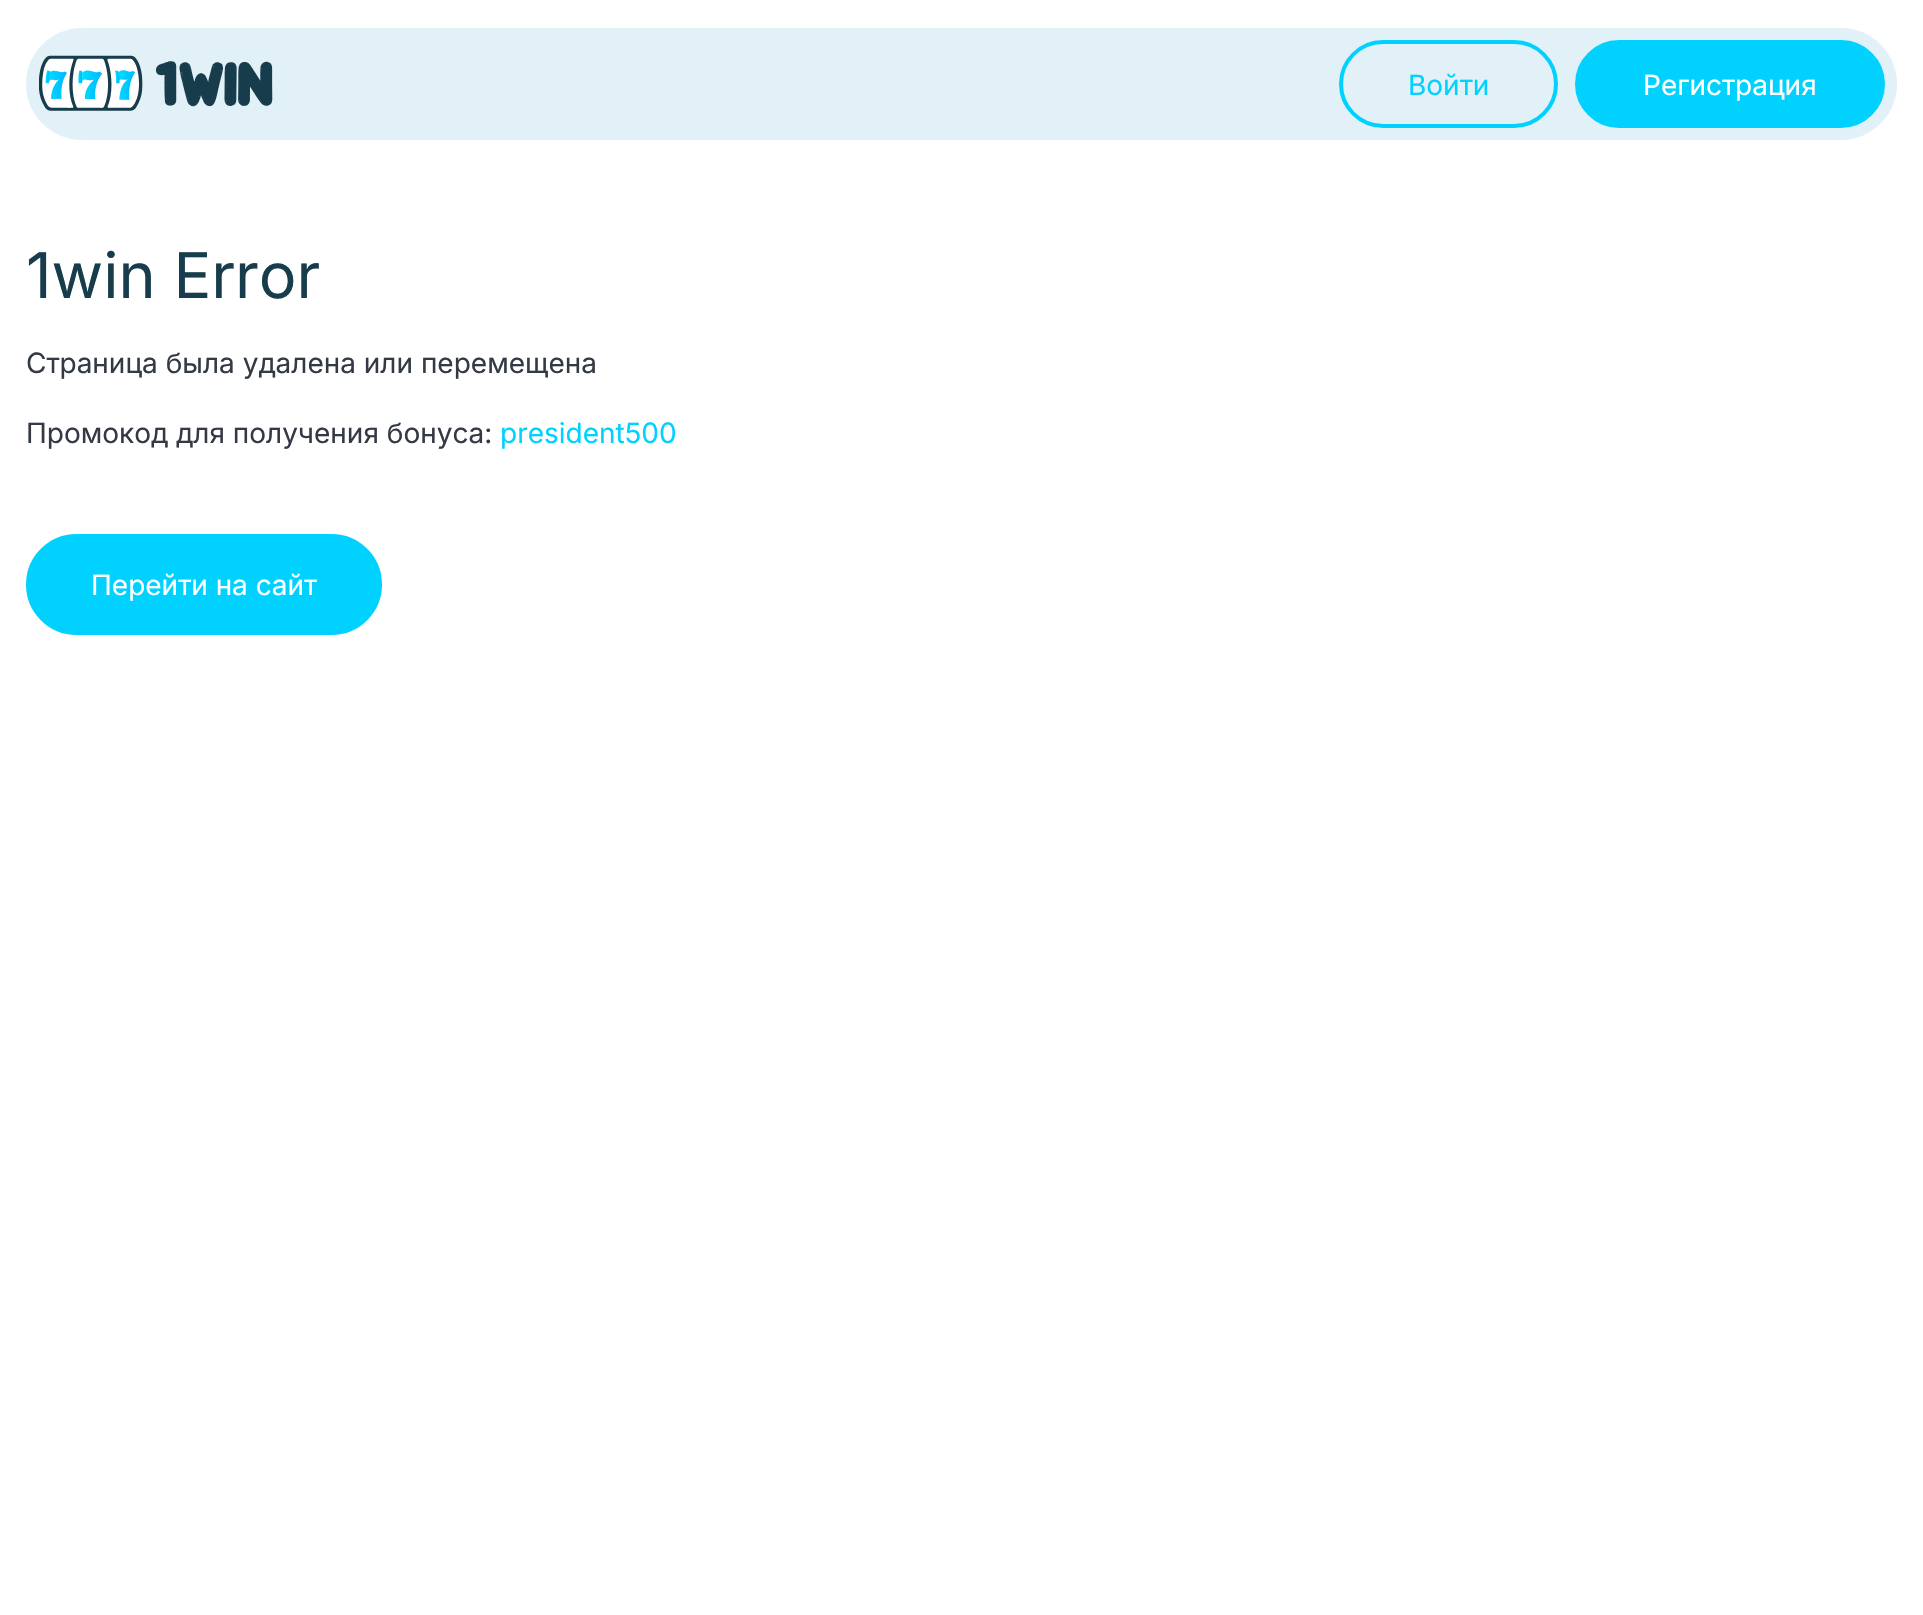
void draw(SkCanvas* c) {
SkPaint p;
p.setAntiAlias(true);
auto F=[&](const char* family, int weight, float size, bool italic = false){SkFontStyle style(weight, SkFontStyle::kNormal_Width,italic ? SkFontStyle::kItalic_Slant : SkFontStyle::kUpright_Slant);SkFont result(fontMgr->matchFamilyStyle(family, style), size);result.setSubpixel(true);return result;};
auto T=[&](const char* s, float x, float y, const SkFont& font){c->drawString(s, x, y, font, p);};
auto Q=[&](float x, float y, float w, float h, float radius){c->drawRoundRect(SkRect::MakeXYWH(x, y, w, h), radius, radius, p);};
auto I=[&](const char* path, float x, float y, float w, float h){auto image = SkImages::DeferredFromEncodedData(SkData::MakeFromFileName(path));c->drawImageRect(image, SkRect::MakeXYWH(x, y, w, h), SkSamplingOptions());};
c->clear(0xffffffff);
p.setColor(0xffe2f0f7);
Q(26,28,1871,112,56);
I("1.png",39,55,234,56);
p.setStroke(true);
p.setStrokeWidth(4);
p.setColor(0xff00d1ff);
c->drawRoundRect(SkRect::MakeXYWH(1341,42,215,84),42,42,p);
auto f1 = F("Inter",400,28);
p.setStroke(false);
T("Войти",1408,95,f1);
c->drawRoundRect(SkRect::MakeXYWH(1577,42,306,84),42,42,p);
p.setStroke(true);
c->drawRoundRect(SkRect::MakeXYWH(1577,42,306,84),42,42,p);
p.setStroke(false);
p.setColor(0xffffffff);
T("Регистрация",1643,95,f1);
auto f2 = F("Inter",400,63);
p.setColor(0xff173d4c);
T("1win Error",26,298,f2);
p.setColor(0xff343a45);
T("Страница была удалена или перемещена",26,373,f1);
T("Промокод для получения бонуса:",26,443,f1);
p.setColor(0xff00d1ff);
T("president500",500,443,f1);
c->drawRoundRect(SkRect::MakeXYWH(28,536,352,97),48.5,48.5,p);
p.setStroke(true);
c->drawRoundRect(SkRect::MakeXYWH(28,536,352,97),48.5,48.5,p);
p.setStroke(false);
p.setColor(0xffffffff);
T("Перейти на сайт",91,595,f1);
}
